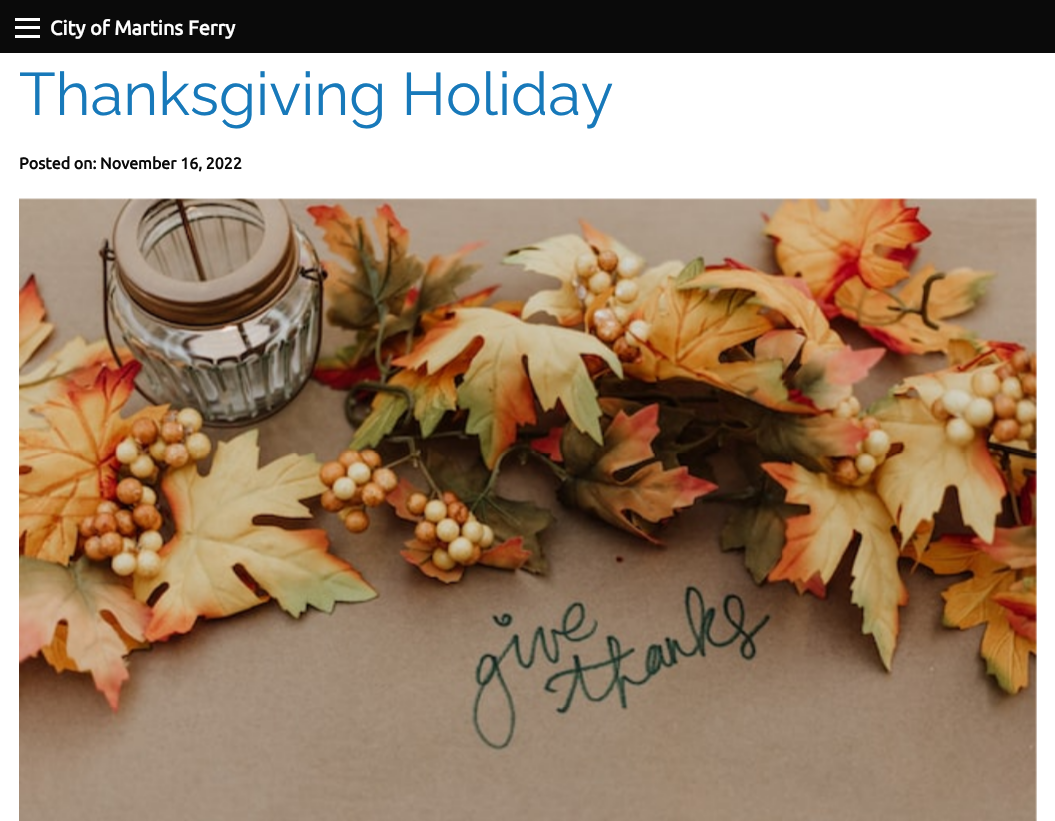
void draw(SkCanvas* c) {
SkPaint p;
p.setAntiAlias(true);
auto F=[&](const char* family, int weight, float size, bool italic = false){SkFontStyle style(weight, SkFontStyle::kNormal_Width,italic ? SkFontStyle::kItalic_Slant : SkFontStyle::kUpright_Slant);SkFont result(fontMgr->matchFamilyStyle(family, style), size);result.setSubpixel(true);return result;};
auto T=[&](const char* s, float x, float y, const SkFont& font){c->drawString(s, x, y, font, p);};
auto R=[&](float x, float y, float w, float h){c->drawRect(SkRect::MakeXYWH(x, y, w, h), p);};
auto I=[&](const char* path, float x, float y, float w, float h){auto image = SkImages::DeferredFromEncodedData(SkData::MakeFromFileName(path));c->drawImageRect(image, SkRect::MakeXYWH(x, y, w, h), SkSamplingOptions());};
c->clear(0xffffffff);
p.setColor(0xff0a0a0a);
R(0,0,1055,53);
p.setColor(0xfffefefe);
R(15,35,25,3);
R(15,26,25,3);
R(15,18,25,3);
auto f1 = F("Ubuntu",700,20);
T("City of Martins Ferry",50,35,f1);
auto f2 = F("Raleway",100,60);
p.setColor(0xff1779ba);
T("Thanksgiving Holiday",19,115,f2);
auto f3 = F("Ubuntu",700,16);
p.setColor(0xff0a0a0a);
T("Posted on: November 16, 2022",19,169,f3);
I("1.png",19,198,1018,623);
}
